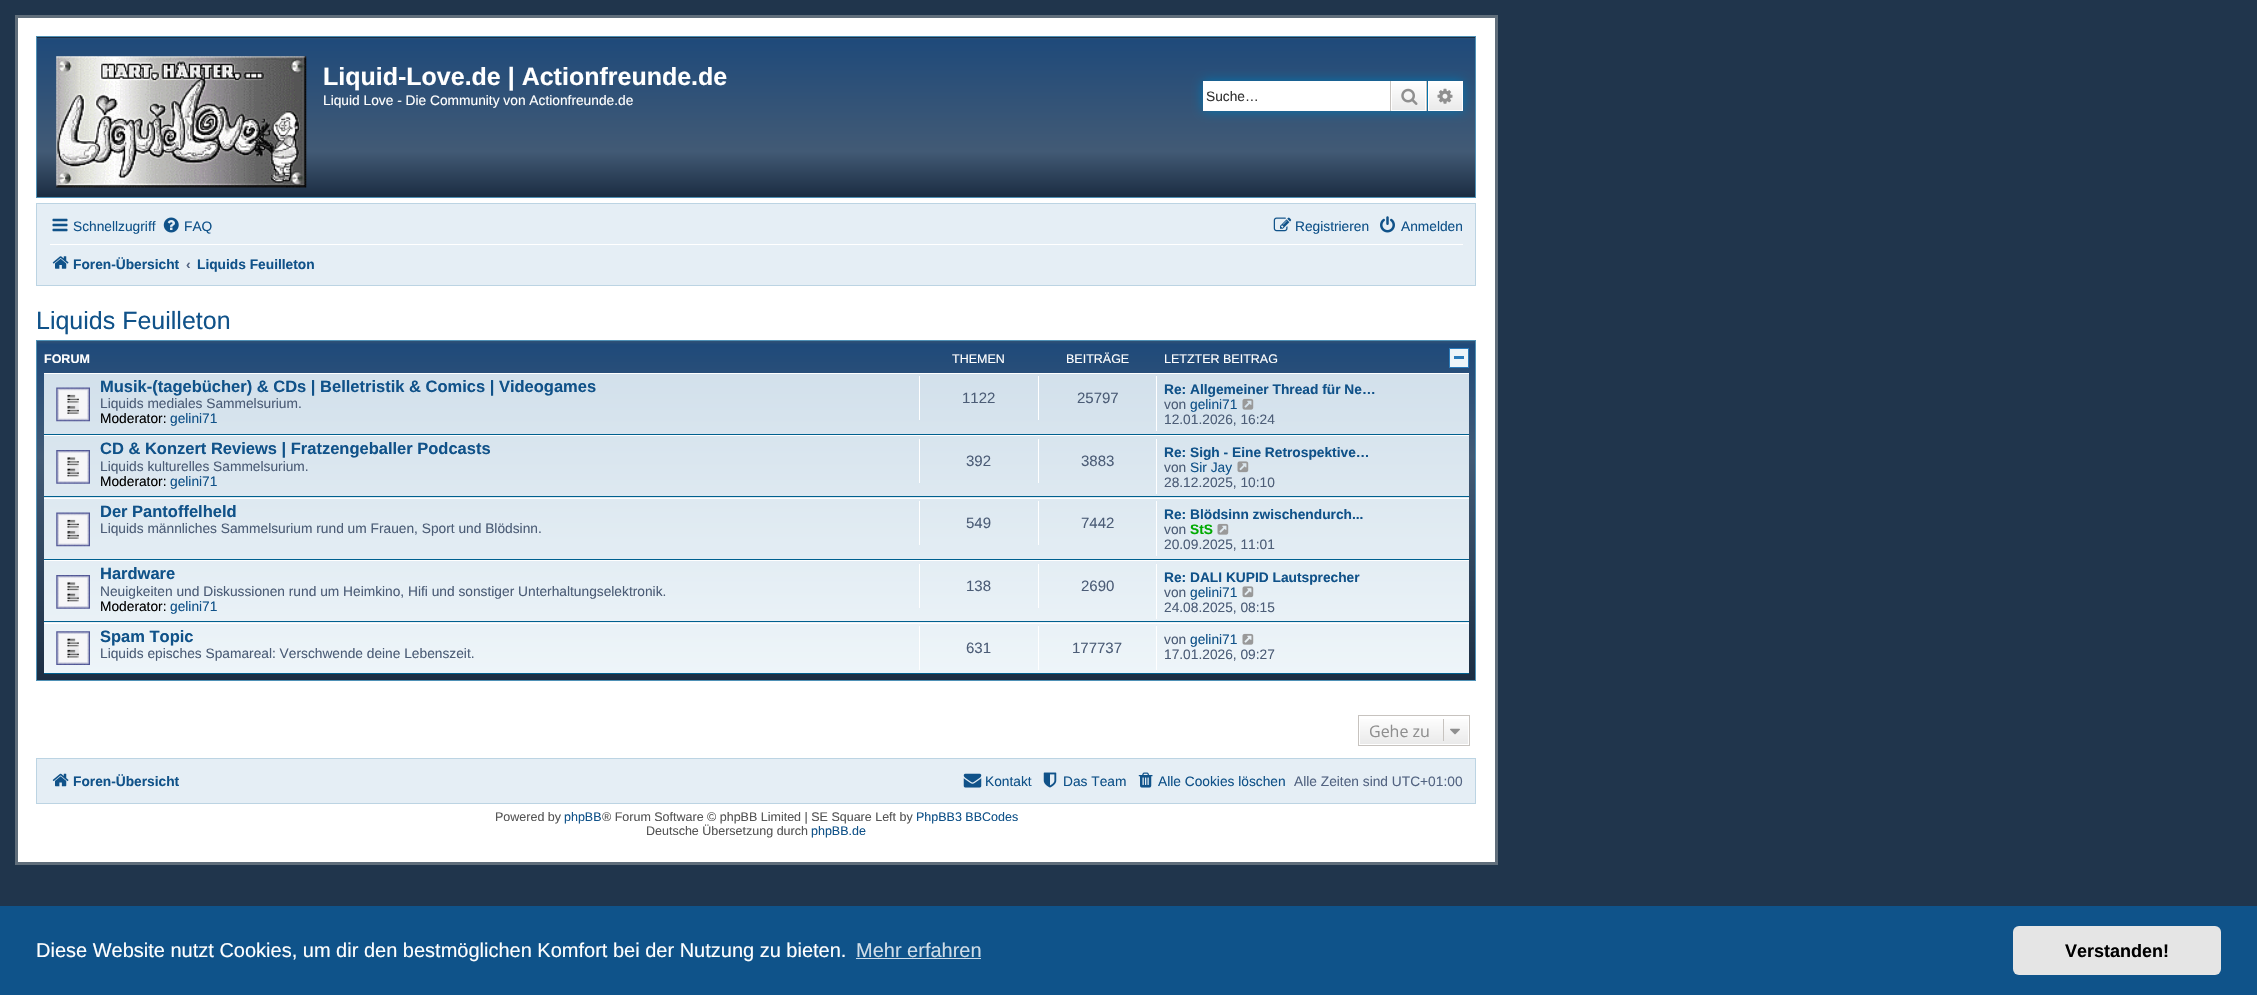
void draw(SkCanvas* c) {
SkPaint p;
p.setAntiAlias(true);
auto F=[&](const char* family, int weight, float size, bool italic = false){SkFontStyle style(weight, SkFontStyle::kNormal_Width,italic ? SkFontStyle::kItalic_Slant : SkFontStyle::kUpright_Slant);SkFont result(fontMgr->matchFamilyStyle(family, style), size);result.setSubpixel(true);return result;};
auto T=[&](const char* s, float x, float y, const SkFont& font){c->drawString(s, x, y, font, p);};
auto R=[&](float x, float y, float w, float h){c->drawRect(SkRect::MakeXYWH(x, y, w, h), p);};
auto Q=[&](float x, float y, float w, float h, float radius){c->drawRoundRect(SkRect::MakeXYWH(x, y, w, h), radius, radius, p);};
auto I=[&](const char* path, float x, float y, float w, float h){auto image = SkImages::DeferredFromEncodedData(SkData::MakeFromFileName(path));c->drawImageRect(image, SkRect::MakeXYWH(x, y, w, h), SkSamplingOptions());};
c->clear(0xff20354c);
p.setColor(0xffffffff);
c->drawRect(SkRect::MakeXYWH(16.5,16.5,1480,847),p);
p.setStroke(true);
p.setStrokeWidth(3);
p.setColor(0xff606e7b);
c->drawRect(SkRect::MakeXYWH(16.5,16.5,1480,847),p);
p.setStroke(false);
p.setColor(0xff1c2e43);
R(37,37,1438,160);
{
const SkColor colors[] = {0xff315275,0xff1f4a7a,0xff425a75,0xff1c2e43};
const float stops[] = {0,.02,.72,1};
const SkPoint ends[] = {{756,37}, {756,196}};
p.setShader(SkGradientShader::MakeLinear(ends, colors, stops, 4, SkTileMode::kClamp));
p.setAlpha(255);
}
R(37,38,1438,156);
p.setStroke(true);
p.setStrokeWidth(1);
p.setShader(nullptr);
p.setColor(0xff4f91b6);
c->drawRect(SkRect::MakeXYWH(36.5,36.5,1439,161),p);
I("1.png",56,56,251,132);
auto f1 = F("Liberation Sans",700,25);
p.setStroke(false);
p.setColor(0xffffffff);
T("Liquid-Love.de | Actionfreunde.de",323,85,f1);
auto f2 = F("Liberation Sans",400,13.75);
T("Liquid Love - Die Community von Actionfreunde.de",323,105,f2);
p.setColor(0xff0075b0);
p.setMaskFilter(SkMaskFilter::MakeBlur(kNormal_SkBlurStyle, 6));
c->drawRect(SkRect::MakeXYWH(1203,81,260,30),p);
p.setMaskFilter(nullptr);
p.setColor(0xffffffff);
R(1203,81,187,30);
p.setColor(0xff333333);
T("Suche…",1206,101,f2);
{
const SkColor colors[] = {0xffffffff,0xffe9e9e9};
const float stops[] = {0,1};
const SkPoint ends[] = {{1409,81}, {1409,111}};
p.setShader(SkGradientShader::MakeLinear(ends, colors, stops, 2, SkTileMode::kClamp));
p.setAlpha(255);
}
R(1392,82,33,28);
p.setStroke(true);
p.setShader(nullptr);
p.setColor(0xffffffff);
c->drawRect(SkRect::MakeXYWH(1391.5,81.5,34,29),p);
p.setStroke(false);
p.setColor(0xffc7c3bf);
R(1426,81,1,30);
R(1390,81,1,30);
I("2.png",1401,88,17,17);
{
const SkColor colors[] = {0xffffffff,0xffe9e9e9};
const float stops[] = {0,1};
const SkPoint ends[] = {{1445,81}, {1445,111}};
p.setShader(SkGradientShader::MakeLinear(ends, colors, stops, 2, SkTileMode::kClamp));
p.setAlpha(255);
}
R(1429,82,33,28);
p.setStroke(true);
p.setShader(nullptr);
p.setColor(0xffffffff);
c->drawRect(SkRect::MakeXYWH(1428.5,81.5,34,29),p);
I("3.png",1437,88,16,16);
p.setStroke(false);
p.setColor(0xffe5eef5);
c->drawRect(SkRect::MakeXYWH(36.5,203.5,1439,82),p);
p.setStroke(true);
p.setColor(0xffbcd4e3);
c->drawRect(SkRect::MakeXYWH(36.5,203.5,1439,82),p);
I("4.png",52,218,16,14);
p.setStroke(false);
p.setColor(0xff105289);
T("Schnellzugriff",73,231,f2);
I("5.png",163,217,16,16);
T("FAQ",184,231,f2);
I("6.png",1273,217,19,15);
T("Registrieren",1295,231,f2);
I("7.png",1380,216,15,17);
T("Anmelden",1401,231,f2);
p.setColor(0xffffffff);
R(50,244,1413,1);
I("8.png",52,256,17,13);
auto f3 = F("Liberation Sans",700,13.75);
p.setColor(0xff105289);
T("Foren-Übersicht",73,269,f3);
p.setColor(0xff536482);
T("‹",186,269,f3);
p.setColor(0xff105289);
T("Liquids Feuilleton",197,269,f3);
auto f4 = F("Liberation Sans",400,25);
T("Liquids Feuilleton",36,329,f4);
{
const SkColor colors[] = {0xff315275,0xff1f4a7a,0xff425a75,0xff1c2e43};
const float stops[] = {0,.01,.34,1};
const SkPoint ends[] = {{756,341}, {756,680}};
p.setShader(SkGradientShader::MakeLinear(ends, colors, stops, 4, SkTileMode::kClamp));
p.setAlpha(255);
}
R(37,341,1438,339);
p.setStroke(true);
p.setShader(nullptr);
p.setColor(0xff4f91b6);
c->drawRect(SkRect::MakeXYWH(36.5,340.5,1439,340),p);
auto f5 = F("Liberation Sans",700,12.5);
p.setStroke(false);
p.setColor(0xffffffff);
T("FORUM",44,363,f5);
auto f6 = F("Liberation Sans",400,12.5);
T("THEMEN",952,363,f6);
T("BEITRÄGE",1066,363,f6);
T("LETZTER BEITRAG",1164,363,f6);
p.setColor(0xffeef5f9);
c->drawRect(SkRect::MakeXYWH(1449.5,348.5,19,19),p);
p.setStroke(true);
p.setColor(0xff2a7bba);
c->drawRect(SkRect::MakeXYWH(1449.5,348.5,19,19),p);
p.setStroke(false);
R(1454,356,10,3);
{
const SkColor colors[] = {0xffd2e0eb,0xffeef5f9};
const float stops[] = {0,1};
const SkPoint ends[] = {{756,372}, {756,674}};
p.setShader(SkGradientShader::MakeLinear(ends, colors, stops, 2, SkTileMode::kClamp));
p.setAlpha(255);
}
R(44,374,1425,299);
p.setShader(nullptr);
p.setColor(0xffffffff);
R(44,373,1425,1);
p.setColor(0xff00608f);
R(44,434,1425,1);
I("9.png",56,387,34,35);
auto f7 = F("Liberation Sans",700,16.5);
p.setColor(0xff105289);
T("Musik-(tagebücher) & CDs | Belletristik & Comics | Videogames",100,392,f7);
p.setColor(0xff4c5d77);
T("Liquids mediales Sammelsurium.",100,408,f2);
p.setColor(0xff000000);
T("Moderator:",100,423,f2);
p.setColor(0xff105289);
T("gelini71",170,423,f2);
p.setColor(0xffffffff);
R(919,376,1,44);
auto f8 = F("Liberation Sans",400,15);
p.setColor(0xff4c5d77);
T("1122",962,403,f8);
p.setColor(0xffffffff);
R(1038,376,1,44);
p.setColor(0xff4c5d77);
T("25797",1077,403,f8);
p.setColor(0xffffffff);
R(1156,376,1,55);
p.setColor(0xff105289);
T("Re: Allgemeiner Thread für Ne…",1164,394,f3);
p.setColor(0xff4c5d77);
T("von",1164,409,f2);
p.setColor(0xff105289);
T("gelini71",1190,409,f2);
I("10.png",1242,398,12,12);
p.setColor(0xff4c5d77);
T("12.01.2026, 16:24",1164,424,f2);
p.setColor(0xffffffff);
R(44,435,1425,1);
p.setColor(0xff00608f);
R(44,496,1425,1);
I("11.png",56,450,34,34);
p.setColor(0xff105289);
T("CD & Konzert Reviews | Fratzengeballer Podcasts",100,454,f7);
p.setColor(0xff4c5d77);
T("Liquids kulturelles Sammelsurium.",100,471,f2);
p.setColor(0xff000000);
T("Moderator:",100,486,f2);
p.setColor(0xff105289);
T("gelini71",170,486,f2);
p.setColor(0xffffffff);
R(919,439,1,44);
p.setColor(0xff4c5d77);
T("392",966,466,f8);
p.setColor(0xffffffff);
R(1038,439,1,44);
p.setColor(0xff4c5d77);
T("3883",1081,466,f8);
p.setColor(0xffffffff);
R(1156,439,1,55);
p.setColor(0xff105289);
T("Re: Sigh - Eine Retrospektive…",1164,457,f3);
p.setColor(0xff4c5d77);
T("von",1164,472,f2);
p.setColor(0xff105289);
T("Sir Jay",1190,472,f2);
I("12.png",1237,461,12,12);
p.setColor(0xff4c5d77);
T("28.12.2025, 10:10",1164,487,f2);
p.setColor(0xffffffff);
R(44,498,1425,1);
p.setColor(0xff00608f);
R(44,559,1425,1);
I("13.png",56,512,34,35);
p.setColor(0xff105289);
T("Der Pantoffelheld",100,517,f7);
p.setColor(0xff4c5d77);
T("Liquids männliches Sammelsurium rund um Frauen, Sport und Blödsinn.",100,533,f2);
p.setColor(0xffffffff);
R(919,501,1,44);
p.setColor(0xff4c5d77);
T("549",966,528,f8);
p.setColor(0xffffffff);
R(1038,501,1,44);
p.setColor(0xff4c5d77);
T("7442",1081,528,f8);
p.setColor(0xffffffff);
R(1156,501,1,55);
p.setColor(0xff105289);
T("Re: Blödsinn zwischendurch...",1164,519,f3);
p.setColor(0xff4c5d77);
T("von",1164,534,f2);
p.setColor(0xff00aa00);
T("StS",1190,534,f3);
I("14.png",1217,523,12,12);
p.setColor(0xff4c5d77);
T("20.09.2025, 11:01",1164,549,f2);
p.setColor(0xffffffff);
R(44,560,1425,1);
p.setColor(0xff00608f);
R(44,621,1425,1);
I("15.png",56,575,34,34);
p.setColor(0xff105289);
T("Hardware",100,579,f7);
p.setColor(0xff4c5d77);
T("Neuigkeiten und Diskussionen rund um Heimkino, Hifi und sonstiger Unterhaltungselektronik.",100,596,f2);
p.setColor(0xff000000);
T("Moderator:",100,611,f2);
p.setColor(0xff105289);
T("gelini71",170,611,f2);
p.setColor(0xffffffff);
R(919,564,1,44);
p.setColor(0xff4c5d77);
T("138",966,591,f8);
p.setColor(0xffffffff);
R(1038,564,1,44);
p.setColor(0xff4c5d77);
T("2690",1081,591,f8);
p.setColor(0xffffffff);
R(1156,564,1,55);
p.setColor(0xff105289);
T("Re: DALI KUPID Lautsprecher",1164,582,f3);
p.setColor(0xff4c5d77);
T("von",1164,597,f2);
p.setColor(0xff105289);
T("gelini71",1190,597,f2);
I("16.png",1242,586,12,12);
p.setColor(0xff4c5d77);
T("24.08.2025, 08:15",1164,612,f2);
p.setColor(0xffffffff);
R(44,623,1425,1);
p.setColor(0xff00608f);
R(44,673,1425,1);
I("17.png",56,631,34,34);
p.setColor(0xff105289);
T("Spam Topic",100,642,f7);
p.setColor(0xff4c5d77);
T("Liquids episches Spamareal: Verschwende deine Lebenszeit.",100,658,f2);
p.setColor(0xffffffff);
R(919,626,1,44);
p.setColor(0xff4c5d77);
T("631",966,653,f8);
p.setColor(0xffffffff);
R(1038,626,1,44);
p.setColor(0xff4c5d77);
T("177737",1072,653,f8);
p.setColor(0xffffffff);
R(1156,626,1,44);
p.setColor(0xff4c5d77);
T("von",1164,644,f2);
p.setColor(0xff105289);
T("gelini71",1190,644,f2);
I("18.png",1242,633,12,12);
p.setColor(0xff4c5d77);
T("17.01.2026, 09:27",1164,659,f2);
{
const SkColor colors[] = {0xffffffff,0xffe9e9e9};
const float stops[] = {0,1};
const SkPoint ends[] = {{1414,716}, {1414,745}};
p.setShader(SkGradientShader::MakeLinear(ends, colors, stops, 2, SkTileMode::kClamp));
p.setAlpha(255);
}
R(1360,719,108,25);
p.setStroke(true);
p.setShader(nullptr);
p.setColor(0xffc7c3bf);
c->drawRect(SkRect::MakeXYWH(1358.5,715.5,111,30),p);
auto f9 = F("Open Sans",400,16);
p.setStroke(false);
p.setColor(0xff8f8f8f);
T("Gehe zu",1369,737,f9);
p.setColor(0xffc7c3bf);
R(1443,719,1,22);
I("19.png",1450,728,10,7);
p.setColor(0xffe5eef5);
c->drawRect(SkRect::MakeXYWH(36.5,758.5,1439,45),p);
p.setStroke(true);
p.setColor(0xffbcd4e3);
c->drawRect(SkRect::MakeXYWH(36.5,758.5,1439,45),p);
I("20.png",52,773,17,14);
p.setStroke(false);
p.setColor(0xff105289);
T("Foren-Übersicht",73,786,f3);
I("21.png",963,773,19,15);
T("Kontakt",985,786,f2);
I("22.png",1043,772,14,16);
T("Das Team",1063,786,f2);
I("23.png",1138,772,15,16);
T("Alle Cookies löschen",1158,786,f2);
p.setColor(0xff536482);
T("Alle Zeiten sind UTC+01:00",1294,786,f2);
p.setColor(0xff555555);
T("Powered by",495,821,f6);
p.setColor(0xff105289);
T("phpBB",564,821,f6);
p.setColor(0xff555555);
T("® Forum Software © phpBB Limited | SE Square Left by",602,821,f6);
p.setColor(0xff105289);
T("PhpBB3 BBCodes",916,821,f6);
p.setColor(0xff555555);
T("Deutsche Übersetzung durch",646,835,f6);
p.setColor(0xff105289);
T("phpBB.de",811,835,f6);
p.setColor(0xff0f538a);
R(0,906,2257,89);
auto f10 = F("Liberation Sans",400,20);
p.setColor(0xffffffff);
T("Diese Website nutzt Cookies, um dir den bestmöglichen Komfort bei der Nutzung zu bieten.",36,957,f10);
p.setColor(0xffcfdde8);
T("Mehr erfahren",856,957,f10);
R(856,958,125,1);
p.setColor(0xffe5e5e5);
Q(2013,926,208,49,6);
auto f11 = F("Liberation Sans",700,18);
p.setColor(0xff000000);
T("Verstanden!",2065,957,f11);
}
